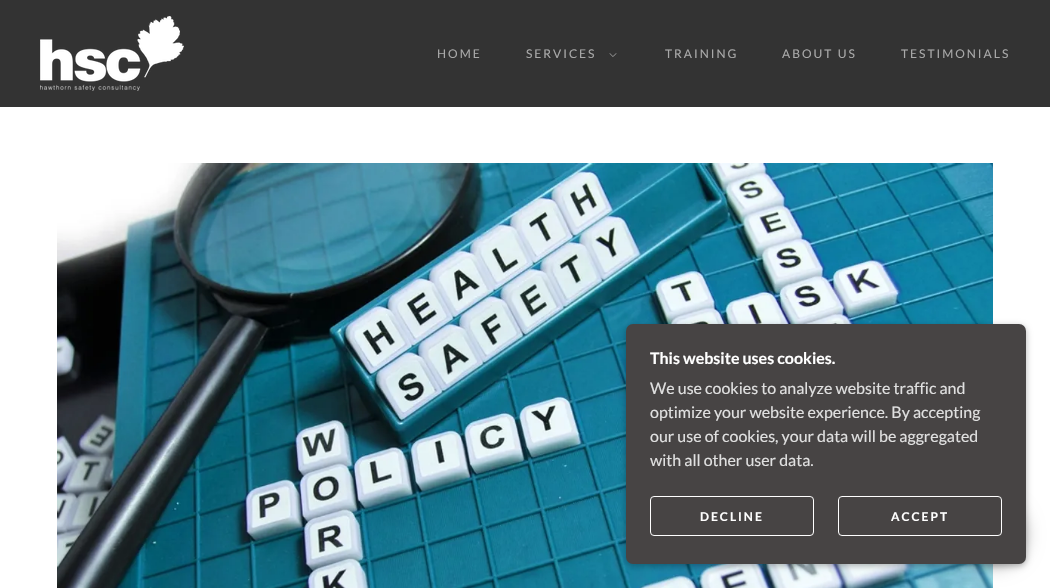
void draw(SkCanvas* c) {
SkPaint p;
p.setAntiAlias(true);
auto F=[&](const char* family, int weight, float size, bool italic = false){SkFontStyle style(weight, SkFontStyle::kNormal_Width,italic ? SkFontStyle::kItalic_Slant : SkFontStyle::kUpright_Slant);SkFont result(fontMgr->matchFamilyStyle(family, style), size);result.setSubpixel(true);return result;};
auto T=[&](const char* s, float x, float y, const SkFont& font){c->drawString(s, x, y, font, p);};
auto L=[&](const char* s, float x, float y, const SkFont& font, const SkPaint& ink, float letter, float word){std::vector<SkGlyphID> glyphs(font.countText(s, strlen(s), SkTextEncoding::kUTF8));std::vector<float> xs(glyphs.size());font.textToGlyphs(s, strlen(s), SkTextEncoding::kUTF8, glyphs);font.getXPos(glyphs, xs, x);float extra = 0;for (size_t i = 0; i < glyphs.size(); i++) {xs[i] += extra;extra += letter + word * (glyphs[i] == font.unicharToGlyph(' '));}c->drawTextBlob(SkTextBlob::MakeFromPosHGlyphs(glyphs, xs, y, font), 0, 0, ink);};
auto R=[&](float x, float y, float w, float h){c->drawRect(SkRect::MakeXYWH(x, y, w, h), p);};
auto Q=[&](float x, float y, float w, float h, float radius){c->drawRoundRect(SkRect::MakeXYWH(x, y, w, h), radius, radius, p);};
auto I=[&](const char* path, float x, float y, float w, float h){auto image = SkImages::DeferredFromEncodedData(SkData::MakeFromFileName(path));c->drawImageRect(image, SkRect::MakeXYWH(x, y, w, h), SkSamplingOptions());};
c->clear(0xffffffff);
p.setColor(0xff333333);
R(0,0,1050,107);
I("1.png",40,16,144,75);
auto f1 = F("Lato",400,12);
p.setColor(0xffa9a9a9);
L("HOME",437,58,f1,p,2,0);
L("SERVICES",526,58,f1,p,2,0);
I("2.png",609,53,8,4);
L("TRAINING",665,58,f1,p,2,0);
L("ABOUT US",782,58,f1,p,2,0);
L("TESTIMONIALS",901,58,f1,p,2,0);
I("3.png",57,163,936,425);
p.setColor(0x4d000000);
p.setMaskFilter(SkMaskFilter::MakeBlur(kNormal_SkBlurStyle, 3));
c->drawRoundRect(SkRect::MakeXYWH(626,326,400,240),7,7,p);
p.setMaskFilter(nullptr);
p.setColor(0x40000000);
p.setMaskFilter(SkMaskFilter::MakeBlur(kNormal_SkBlurStyle, 9));
c->drawRoundRect(SkRect::MakeXYWH(961,502,65,65),32.5,32.5,p);
p.setMaskFilter(nullptr);
p.setColor(0xff474444);
Q(626,324,400,240,7);
auto f2 = F("Lato",700,16);
p.setColor(0xffffffff);
T("This website uses cookies.",650,364,f2);
auto f3 = F("Lato",400,16);
p.setColor(0xffe0e0e0);
T("We use cookies to analyze website traffic and",650,394,f3);
T("optimize your website experience. By accepting",650,418,f3);
T("our use of cookies, your data will be aggregated",650,442,f3);
T("with all other user data.",650,466,f3);
p.setStroke(true);
p.setStrokeWidth(1);
p.setColor(0xffffffff);
c->drawRoundRect(SkRect::MakeXYWH(650.5,496.5,163,39),3.5,3.5,p);
auto f4 = F("Lato",700,12);
p.setStroke(false);
L("DECLINE",700,521,f4,p,2,0);
p.setStroke(true);
c->drawRoundRect(SkRect::MakeXYWH(838.5,496.5,163,39),3.5,3.5,p);
p.setStroke(false);
L("ACCEPT",891,521,f4,p,2,0);
}
